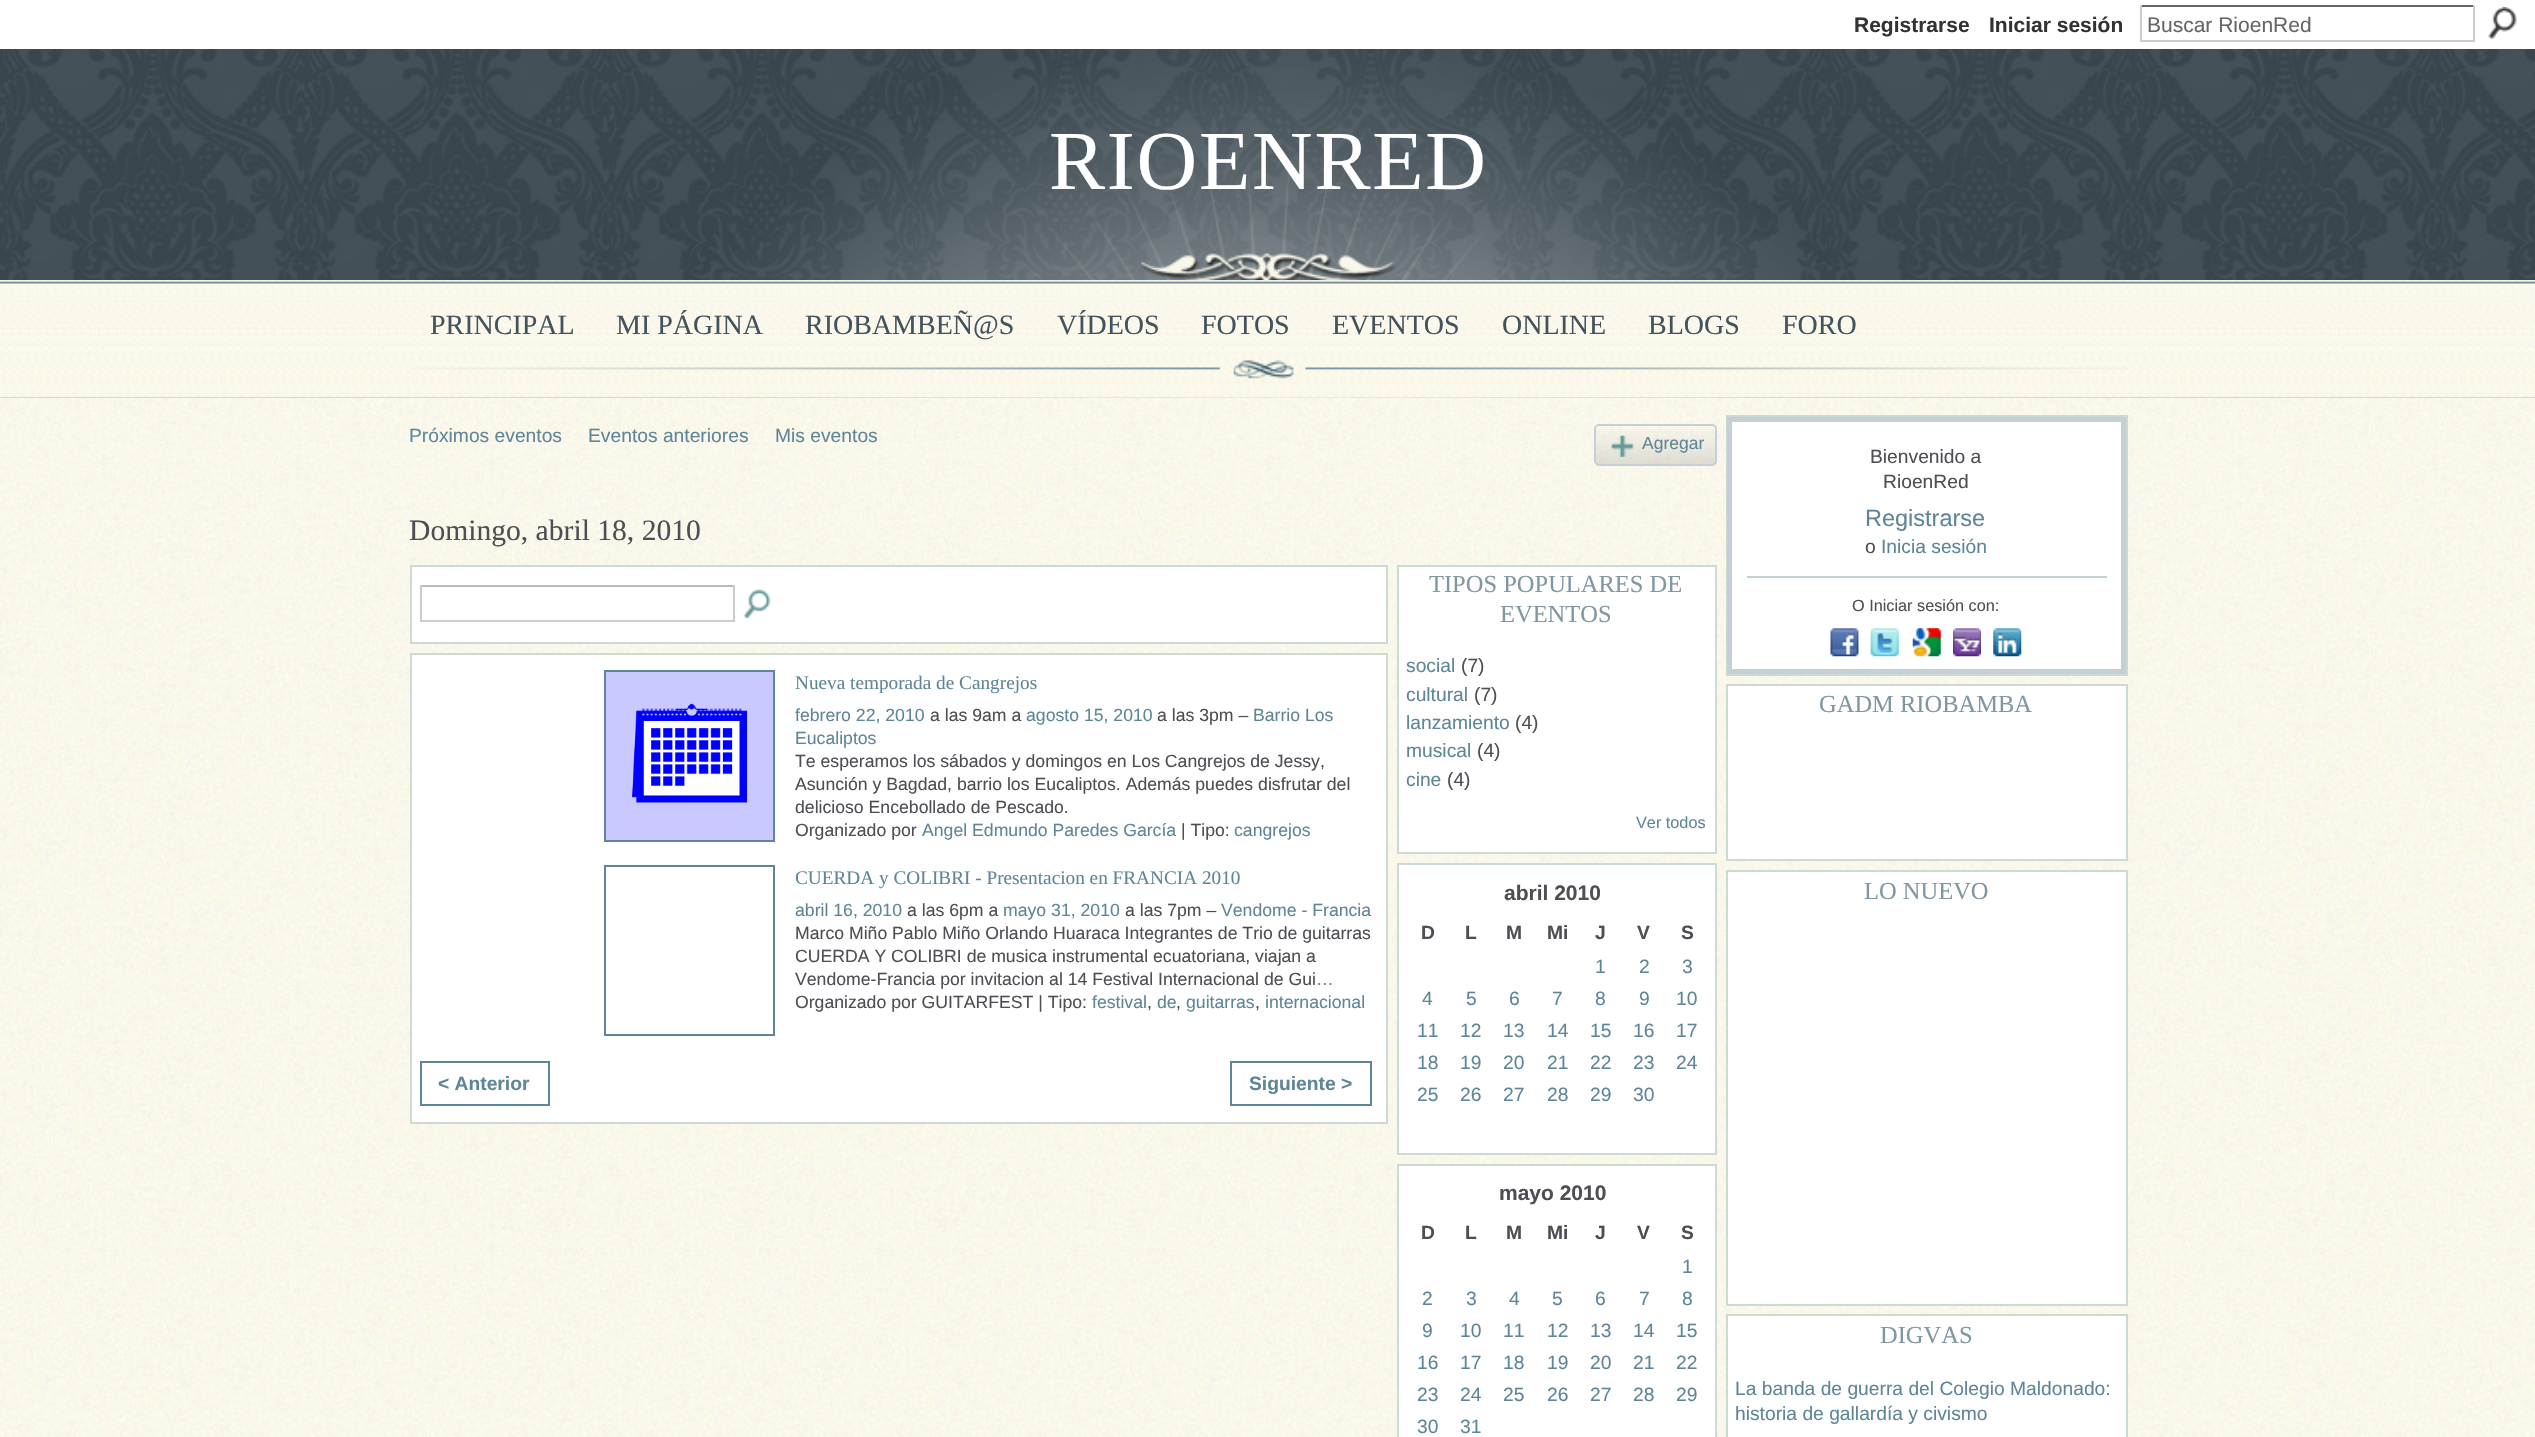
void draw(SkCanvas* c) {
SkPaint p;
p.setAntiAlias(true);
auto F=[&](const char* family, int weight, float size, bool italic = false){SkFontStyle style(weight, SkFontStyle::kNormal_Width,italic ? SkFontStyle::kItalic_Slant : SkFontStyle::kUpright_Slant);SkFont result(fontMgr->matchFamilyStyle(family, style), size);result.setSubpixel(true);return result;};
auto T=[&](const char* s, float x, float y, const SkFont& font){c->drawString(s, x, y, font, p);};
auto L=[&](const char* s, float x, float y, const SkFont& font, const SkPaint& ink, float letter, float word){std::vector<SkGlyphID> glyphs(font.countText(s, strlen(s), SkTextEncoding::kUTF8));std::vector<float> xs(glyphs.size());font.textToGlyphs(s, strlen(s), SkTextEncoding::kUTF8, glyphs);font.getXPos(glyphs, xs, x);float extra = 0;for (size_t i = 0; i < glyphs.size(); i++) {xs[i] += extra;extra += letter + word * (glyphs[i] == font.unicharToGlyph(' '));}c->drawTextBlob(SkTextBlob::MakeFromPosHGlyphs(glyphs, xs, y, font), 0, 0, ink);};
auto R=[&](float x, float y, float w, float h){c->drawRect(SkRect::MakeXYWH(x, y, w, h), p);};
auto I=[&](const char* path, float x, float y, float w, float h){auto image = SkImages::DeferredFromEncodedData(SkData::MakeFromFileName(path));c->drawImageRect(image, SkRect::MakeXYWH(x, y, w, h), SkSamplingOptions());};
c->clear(0xff42525c);
I("1.png",0,49,2535,349);
p.setColor(0xffffffff);
R(0,0,2535,49);
auto f1 = F("Liberation Sans",700,21);
p.setColor(0xff333333);
T("Registrarse",1854,32,f1);
T("Iniciar sesión",1989,32,f1);
p.setColor(0xff666666);
R(2140,5,335,2);
p.setColor(0xffcccccc);
R(2473,5,2,37);
R(2140,40,335,2);
R(2140,5,2,37);
auto f2 = F("Liberation Sans",400,21);
p.setColor(0xff666666);
T("Buscar RioenRed",2147,32,f2);
I("2.png",2488,7,29,32);
I("3.png",650,49,1237,349);
I("4.png",1141,252,254,28);
auto f3 = F("Liberation Serif",400,84);
p.setColor(0xffffffff);
L("RIOENRED",1049,189,f3,p,1.75,0);
I("5.png",0,280,2535,118);
I("6.png",410,360,1718,19);
auto f4 = F("Liberation Serif",400,28);
p.setColor(0xff42535d);
T("PRINCIPAL",430,334,f4);
T("MI PÁGINA",616,334,f4);
T("RIOBAMBEÑ@S",805,334,f4);
T("VÍDEOS",1057,334,f4);
T("FOTOS",1201,334,f4);
T("EVENTOS",1332,334,f4);
T("ONLINE",1502,334,f4);
T("BLOGS",1648,334,f4);
T("FORO",1782,334,f4);
I("7.png",0,397,2535,1040);
auto f5 = F("Liberation Sans",400,19.25);
p.setColor(0xff5e8698);
T("Próximos eventos",409,442,f5);
T("Eventos anteriores",588,442,f5);
T("Mis eventos",775,442,f5);
I("8.png",1594,429,123,37);
p.setStroke(true);
p.setStrokeWidth(2);
p.setColor(0xffc4d0d5);
c->drawRoundRect(SkRect::MakeXYWH(1595,425,121,40),4,4,p);
I("9.png",1611,435,23,22);
auto f6 = F("Liberation Sans",400,17.5);
p.setStroke(false);
p.setColor(0xff5e8698);
T("Agregar",1642,449,f6);
auto f7 = F("Liberation Serif",400,29.6);
p.setColor(0xff4e4e54);
T("Domingo, abril 18, 2010",409,540,f7);
p.setColor(0xffffffff);
c->drawRect(SkRect::MakeXYWH(411,566,976,77),p);
p.setStroke(true);
p.setColor(0xffcdd9d3);
c->drawRect(SkRect::MakeXYWH(411,566,976,77),p);
p.setStroke(false);
p.setColor(0xffbbbbbb);
R(420,585,315,2);
p.setColor(0xffcccccc);
R(733,585,2,36);
R(420,620,315,2);
R(420,585,2,36);
I("10.png",743,589,28,30);
p.setColor(0xffffffff);
c->drawRect(SkRect::MakeXYWH(411,654,976,469),p);
p.setStroke(true);
p.setColor(0xffcdd9d3);
c->drawRect(SkRect::MakeXYWH(411,654,976,469),p);
I("11.png",606,672,167,168);
p.setColor(0xff5e8698);
c->drawRect(SkRect::MakeXYWH(605,671,169,170),p);
auto f8 = F("Liberation Serif",400,19.25);
p.setStroke(false);
T("Nueva temporada de Cangrejos",795,689,f8);
auto f9 = F("Liberation Sans",400,17.65);
T("febrero 22, 2010",795,721,f9);
p.setColor(0xff4e4e54);
T("a las 9am a",930,721,f9);
p.setColor(0xff5e8698);
T("agosto 15, 2010",1026,721,f9);
p.setColor(0xff4e4e54);
T("a las 3pm –",1157,721,f9);
p.setColor(0xff5e8698);
T("Barrio Los",1253,721,f9);
T("Eucaliptos",795,744,f9);
p.setColor(0xff4e4e54);
T("Te esperamos los sábados y domingos en Los Cangrejos de Jessy,",795,767,f9);
T("Asunción y Bagdad, barrio los Eucaliptos. Además puedes disfrutar del",795,790,f9);
T("delicioso Encebollado de Pescado.",795,813,f9);
T("Organizado por",795,836,f9);
p.setColor(0xff5e8698);
T("Angel Edmundo Paredes García",922,836,f9);
p.setColor(0xff4e4e54);
T("| Tipo:",1181,836,f9);
p.setColor(0xff5e8698);
T("cangrejos",1234,836,f9);
p.setStroke(true);
c->drawRect(SkRect::MakeXYWH(605,866,169,169),p);
p.setStroke(false);
T("CUERDA y COLIBRI - Presentacion en FRANCIA 2010",795,884,f8);
T("abril 16, 2010",795,916,f9);
p.setColor(0xff4e4e54);
T("a las 6pm a",907,916,f9);
p.setColor(0xff5e8698);
T("mayo 31, 2010",1003,916,f9);
p.setColor(0xff4e4e54);
T("a las 7pm –",1125,916,f9);
p.setColor(0xff5e8698);
T("Vendome - Francia",1221,916,f9);
p.setColor(0xff4e4e54);
T("Marco Miño Pablo Miño Orlando Huaraca Integrantes de Trio de guitarras",795,939,f9);
T("CUERDA Y COLIBRI de musica instrumental ecuatoriana, viajan a",795,962,f9);
T("Vendome-Francia por invitacion al 14 Festival Internacional de Gui",795,985,f9);
p.setColor(0xff5e8698);
T("…",1316,985,f9);
p.setColor(0xff4e4e54);
T("Organizado por GUITARFEST | Tipo:",795,1008,f9);
p.setColor(0xff5e8698);
T("festival",1092,1008,f9);
p.setColor(0xff4e4e54);
T(",",1147,1008,f9);
p.setColor(0xff5e8698);
T("de",1157,1008,f9);
p.setColor(0xff4e4e54);
T(",",1176,1008,f9);
p.setColor(0xff5e8698);
T("guitarras",1186,1008,f9);
p.setColor(0xff4e4e54);
T(",",1255,1008,f9);
p.setColor(0xff5e8698);
T("internacional",1265,1008,f9);
p.setStroke(true);
c->drawRect(SkRect::MakeXYWH(421,1062,128,43),p);
auto f10 = F("Liberation Sans",700,19.25);
p.setStroke(false);
T("< Anterior",438,1090,f10);
p.setStroke(true);
c->drawRect(SkRect::MakeXYWH(1231,1062,140,43),p);
p.setStroke(false);
T("Siguiente >",1249,1090,f10);
p.setColor(0xffffffff);
c->drawRect(SkRect::MakeXYWH(1398,566,318,287),p);
p.setStroke(true);
p.setColor(0xffcdd9d3);
c->drawRect(SkRect::MakeXYWH(1398,566,318,287),p);
auto f11 = F("Liberation Serif",400,24.5);
p.setStroke(false);
p.setColor(0xff8198a3);
T("TIPOS POPULARES DE",1429,592,f11);
T("EVENTOS",1500,622,f11);
p.setColor(0xff5e8698);
T("social",1406,672,f5);
p.setColor(0xff4e4e54);
T("(7)",1461,672,f5);
p.setColor(0xff5e8698);
T("cultural",1406,701,f5);
p.setColor(0xff4e4e54);
T("(7)",1474,701,f5);
p.setColor(0xff5e8698);
T("lanzamiento",1406,729,f5);
p.setColor(0xff4e4e54);
T("(4)",1515,729,f5);
p.setColor(0xff5e8698);
T("musical",1406,757,f5);
p.setColor(0xff4e4e54);
T("(4)",1477,757,f5);
p.setColor(0xff5e8698);
T("cine",1406,786,f5);
p.setColor(0xff4e4e54);
T("(4)",1447,786,f5);
auto f12 = F("Liberation Sans",400,16.25);
p.setColor(0xff5e8698);
T("Ver todos",1636,828,f12);
p.setColor(0xffffffff);
c->drawRect(SkRect::MakeXYWH(1398,864,318,290),p);
p.setStroke(true);
p.setColor(0xffcdd9d3);
c->drawRect(SkRect::MakeXYWH(1398,864,318,290),p);
p.setStroke(false);
p.setColor(0xff4e4e54);
T("abril 2010",1504,900,f1);
T("D",1421,939,f10);
T("L",1465,939,f10);
T("M",1506,939,f10);
T("Mi",1547,939,f10);
T("J",1595,939,f10);
T("V",1637,939,f10);
T("S",1681,939,f10);
p.setColor(0xff5e8698);
T("1",1595,973,f5);
T("2",1639,973,f5);
T("3",1682,973,f5);
T("4",1422,1005,f5);
T("5",1466,1005,f5);
T("6",1509,1005,f5);
T("7",1552,1005,f5);
T("8",1595,1005,f5);
T("9",1639,1005,f5);
T("10",1676,1005,f5);
T("11",1417,1037,f5);
T("12",1460,1037,f5);
T("13",1503,1037,f5);
T("14",1547,1037,f5);
T("15",1590,1037,f5);
T("16",1633,1037,f5);
T("17",1676,1037,f5);
T("18",1417,1069,f5);
T("19",1460,1069,f5);
T("20",1503,1069,f5);
T("21",1547,1069,f5);
T("22",1590,1069,f5);
T("23",1633,1069,f5);
T("24",1676,1069,f5);
T("25",1417,1101,f5);
T("26",1460,1101,f5);
T("27",1503,1101,f5);
T("28",1547,1101,f5);
T("29",1590,1101,f5);
T("30",1633,1101,f5);
p.setColor(0xffffffff);
c->drawRect(SkRect::MakeXYWH(1398,1165,318,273),p);
p.setStroke(true);
p.setColor(0xffcdd9d3);
c->drawRect(SkRect::MakeXYWH(1398,1165,318,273),p);
p.setStroke(false);
p.setColor(0xff4e4e54);
T("mayo 2010",1499,1200,f1);
T("D",1421,1239,f10);
T("L",1465,1239,f10);
T("M",1506,1239,f10);
T("Mi",1547,1239,f10);
T("J",1595,1239,f10);
T("V",1637,1239,f10);
T("S",1681,1239,f10);
p.setColor(0xff5e8698);
T("1",1682,1273,f5);
T("2",1422,1305,f5);
T("3",1466,1305,f5);
T("4",1509,1305,f5);
T("5",1552,1305,f5);
T("6",1595,1305,f5);
T("7",1639,1305,f5);
T("8",1682,1305,f5);
T("9",1422,1337,f5);
T("10",1460,1337,f5);
T("11",1503,1337,f5);
T("12",1547,1337,f5);
T("13",1590,1337,f5);
T("14",1633,1337,f5);
T("15",1676,1337,f5);
T("16",1417,1369,f5);
T("17",1460,1369,f5);
T("18",1503,1369,f5);
T("19",1547,1369,f5);
T("20",1590,1369,f5);
T("21",1633,1369,f5);
T("22",1676,1369,f5);
T("23",1417,1401,f5);
T("24",1460,1401,f5);
T("25",1503,1401,f5);
T("26",1547,1401,f5);
T("27",1590,1401,f5);
T("28",1633,1401,f5);
T("29",1676,1401,f5);
T("30",1417,1433,f5);
T("31",1460,1433,f5);
p.setColor(0xffffffff);
R(1732,422,389,247);
p.setStroke(true);
p.setColor(0xffcdd9d3);
c->drawRect(SkRect::MakeXYWH(1727,416,400,259),p);
p.setStrokeWidth(5);
p.setColor(0xffc4d0d5);
c->drawRect(SkRect::MakeXYWH(1729.5,419.5,394,252),p);
p.setStroke(false);
p.setColor(0xff4e4e54);
T("Bienvenido a",1870,463,f5);
T("RioenRed",1883,488,f5);
auto f13 = F("Liberation Sans",400,23.5);
p.setColor(0xff5e8698);
T("Registrarse",1865,526,f13);
p.setColor(0xff4e4e54);
T("o",1865,553,f5);
p.setColor(0xff5e8698);
T("Inicia sesión",1881,553,f5);
p.setColor(0xffc4d0d5);
R(1747,576,360,2);
p.setColor(0xff4e4e54);
T("O Iniciar sesión con:",1852,611,f12);
I("12.png",1830,628,29,29);
I("13.png",1870,628,29,29);
I("14.png",1912,628,29,29);
I("15.png",1953,628,28,29);
I("16.png",1993,628,29,29);
p.setColor(0xffffffff);
c->drawRect(SkRect::MakeXYWH(1727,685,400,175),p);
p.setStroke(true);
p.setStrokeWidth(2);
p.setColor(0xffcdd9d3);
c->drawRect(SkRect::MakeXYWH(1727,685,400,175),p);
p.setStroke(false);
p.setColor(0xff8198a3);
T("GADM RIOBAMBA",1819,712,f11);
p.setColor(0xffffffff);
c->drawRect(SkRect::MakeXYWH(1727,871,400,434),p);
p.setStroke(true);
p.setColor(0xffcdd9d3);
c->drawRect(SkRect::MakeXYWH(1727,871,400,434),p);
p.setStroke(false);
p.setColor(0xff8198a3);
T("LO NUEVO",1864,899,f11);
p.setColor(0xffffffff);
c->drawRect(SkRect::MakeXYWH(1727,1315,400,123),p);
p.setStroke(true);
p.setColor(0xffcdd9d3);
c->drawRect(SkRect::MakeXYWH(1727,1315,400,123),p);
p.setStroke(false);
p.setColor(0xff8198a3);
T("DIGVAS",1880,1343,f11);
p.setColor(0xff5e8698);
T("La banda de guerra del Colegio Maldonado:",1735,1395,f5);
T("historia de gallardía y civismo",1735,1420,f5);
}
